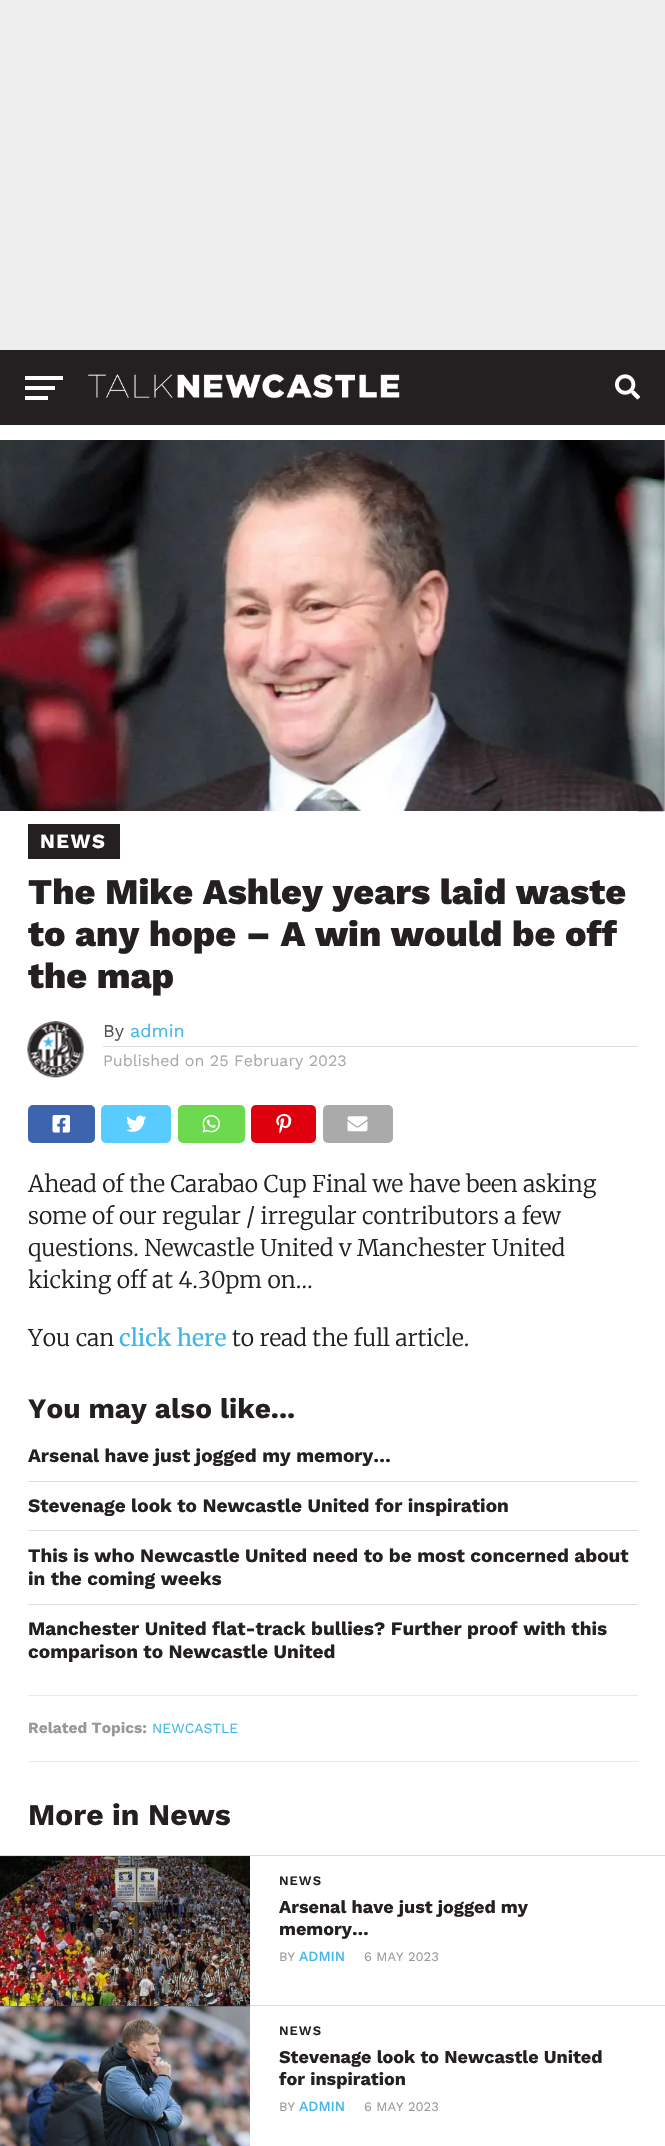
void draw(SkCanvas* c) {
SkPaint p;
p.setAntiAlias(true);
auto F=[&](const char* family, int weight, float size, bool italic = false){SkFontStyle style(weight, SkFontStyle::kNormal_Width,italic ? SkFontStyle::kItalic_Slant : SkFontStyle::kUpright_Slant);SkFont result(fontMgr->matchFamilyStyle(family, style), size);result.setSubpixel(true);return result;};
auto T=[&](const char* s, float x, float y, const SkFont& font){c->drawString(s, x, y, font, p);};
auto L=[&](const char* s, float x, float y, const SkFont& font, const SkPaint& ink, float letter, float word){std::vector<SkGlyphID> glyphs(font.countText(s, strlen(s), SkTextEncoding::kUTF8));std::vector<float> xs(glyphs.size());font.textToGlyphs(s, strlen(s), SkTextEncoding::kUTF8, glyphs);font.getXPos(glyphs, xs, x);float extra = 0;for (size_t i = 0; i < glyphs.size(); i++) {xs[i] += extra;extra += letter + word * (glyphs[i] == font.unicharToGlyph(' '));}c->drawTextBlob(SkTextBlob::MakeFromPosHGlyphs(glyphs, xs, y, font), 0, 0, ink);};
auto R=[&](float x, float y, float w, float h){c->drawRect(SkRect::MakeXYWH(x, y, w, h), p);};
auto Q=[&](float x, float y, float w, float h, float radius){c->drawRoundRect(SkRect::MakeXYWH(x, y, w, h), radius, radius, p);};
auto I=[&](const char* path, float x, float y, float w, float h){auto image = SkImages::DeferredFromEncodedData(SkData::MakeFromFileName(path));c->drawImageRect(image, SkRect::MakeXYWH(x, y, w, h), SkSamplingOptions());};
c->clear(0xffffffff);
p.setColor(0xffeeeeee);
R(0,0,665,350);
p.setColor(0xff241f20);
R(0,350,665,75);
p.setColor(0xffffffff);
R(25,376,38,4);
R(25,386,30,4);
R(25,396,23,4);
I("1.png",88,374,312,24);
I("2.png",615,374,25,26);
I("3.png",0,440,665,372);
R(0,811,638,1);
p.setColor(0xff241f20);
R(28,824,92,35);
auto f1 = F("Work Sans",700,20);
p.setColor(0xffffffff);
L("NEWS",40,848,f1,p,1.5,0);
auto f2 = F("Work Sans",800,36);
p.setColor(0xff241f20);
T("The Mike Ashley years laid waste",28,904,f2);
T("to any hope – A win would be off",28,946,f2);
T("the map",28,988,f2);
I("4.png",27,1021,58,57);
p.setColor(0xffdddddd);
R(103,1046,535,1);
auto f3 = F("Work Sans",400,18);
p.setColor(0xff555555);
T("By",103,1037,f3);
p.setColor(0xff41b6e6);
T("admin",130,1037,f3);
auto f4 = F("Work Sans",400,16);
p.setColor(0xffaaaaaa);
T("Published on 25 February 2023",103,1066,f4);
p.setColor(0xff3e64ad);
Q(28,1105,67,38,5);
I("5.png",52,1115,18,18);
p.setColor(0xff58ccff);
Q(101,1105,70,38,5);
I("6.png",126,1115,21,17);
p.setColor(0xff6cd94e);
Q(178,1105,67,38,5);
I("7.png",202,1115,18,18);
p.setColor(0xffde010d);
Q(251,1105,65,38,5);
I("8.png",276,1114,16,20);
p.setColor(0xffaaaaaa);
Q(323,1105,70,38,5);
I("9.png",347,1116,21,16);
auto f5 = F("Merriweather",300,23);
p.setColor(0xff241f20);
T("Ahead of the Carabao Cup Final we have been asking",28,1192,f5);
T("some of our regular / irregular contributors a few",28,1224,f5);
T("questions. Newcastle United v Manchester United",28,1256,f5);
T("kicking off at 4.30pm on…",28,1288,f5);
T("You can",28,1346,f5);
auto f6 = F("Merriweather",400,23);
p.setColor(0xff41b6e6);
T("click here",119,1346,f6);
p.setColor(0xff241f20);
T("to read the full article.",232,1346,f5);
auto f7 = F("Work Sans",700,28);
T("You may also like...",28,1418,f7);
auto f8 = F("Work Sans",700,19);
T("Arsenal have just jogged my memory…",28,1462,f8);
p.setColor(0xffdddddd);
R(28,1481,610,1);
p.setColor(0xff241f20);
T("Stevenage look to Newcastle United for inspiration",28,1512,f8);
p.setColor(0xffdddddd);
R(28,1530,610,1);
p.setColor(0xff241f20);
T("This is who Newcastle United need to be most concerned about",28,1562,f8);
T("in the coming weeks",28,1585,f8);
p.setColor(0xffdddddd);
R(28,1604,610,1);
p.setColor(0xff241f20);
T("Manchester United flat-track bullies? Further proof with this",28,1635,f8);
T("comparison to Newcastle United",28,1658,f8);
p.setColor(0xffe9e9e9);
R(28,1695,610,1);
R(28,1761,610,1);
auto f9 = F("Work Sans",700,15.5);
p.setColor(0xff999999);
T("Related Topics:",28,1733,f9);
auto f10 = F("Work Sans",400,14);
p.setColor(0xff41b6e6);
T("NEWCASTLE",152,1733,f10);
auto f11 = F("Work Sans",700,30);
p.setColor(0xff241f20);
T("More in News",28,1825,f11);
p.setColor(0xffdddddd);
R(0,1855,665,1);
p.setColor(0xff222222);
R(0,1856,250,290);
I("10.png",0,1856,250,150);
p.setColor(0xffdddddd);
R(250,2005,415,1);
auto f12 = F("Work Sans",600,13);
p.setColor(0xff241f20);
L("NEWS",279,1885,f12,p,1,0);
auto f13 = F("Work Sans",700,18);
T("Arsenal have just jogged my",279,1913,f13);
T("memory…",279,1935,f13);
auto f14 = F("Work Sans",400,13);
p.setColor(0xff999999);
T("BY",279,1961,f14);
auto f15 = F("Work Sans",500,14);
p.setColor(0xff41b6e6);
T("ADMIN",299,1961,f15);
p.setColor(0xff999999);
T("6 MAY 2023",364,1961,f14);
I("11.png",0,2006,250,140);
p.setColor(0xff241f20);
L("NEWS",279,2035,f12,p,1,0);
T("Stevenage look to Newcastle United",279,2063,f13);
T("for inspiration",279,2085,f13);
p.setColor(0xff999999);
T("BY",279,2111,f14);
p.setColor(0xff41b6e6);
T("ADMIN",299,2111,f15);
p.setColor(0xff999999);
T("6 MAY 2023",364,2111,f14);
}
